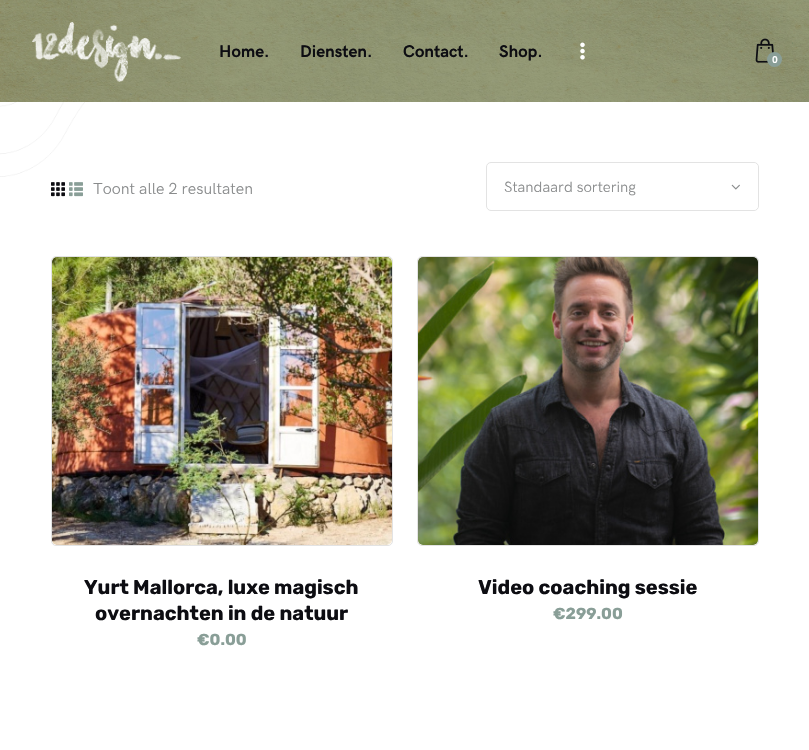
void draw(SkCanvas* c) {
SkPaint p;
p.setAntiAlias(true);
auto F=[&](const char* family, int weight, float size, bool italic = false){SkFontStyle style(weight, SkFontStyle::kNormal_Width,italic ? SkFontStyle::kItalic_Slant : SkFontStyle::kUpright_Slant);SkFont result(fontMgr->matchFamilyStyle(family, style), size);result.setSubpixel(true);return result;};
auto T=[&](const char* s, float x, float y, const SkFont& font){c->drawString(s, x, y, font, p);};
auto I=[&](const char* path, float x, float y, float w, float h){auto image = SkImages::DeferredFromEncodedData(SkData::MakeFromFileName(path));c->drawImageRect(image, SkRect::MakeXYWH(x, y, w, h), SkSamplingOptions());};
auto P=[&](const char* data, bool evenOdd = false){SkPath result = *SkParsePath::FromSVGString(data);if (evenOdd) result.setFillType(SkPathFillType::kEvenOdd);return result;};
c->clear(0xffffffff);
I("1.png",0,102,85,75);
I("2.png",0,0,809,102);
I("3.png",32,22,149,60);
auto f1 = F("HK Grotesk",700,17);
p.setColor(0xff0d0d12);
T("Home.",219,57,f1);
T("Diensten.",300,57,f1);
T("Contact.",403,57,f1);
T("Shop.",499,57,f1);
I("4.png",580,42,5,18);
I("5.png",755,38,19,25);
p.setColor(0xff899e97);
c->drawCircle(774.5,59.5,7.5,p);
auto f2 = F("HK Grotesk",700,10);
p.setColor(0xffffffff);
T("0",772,63,f2);
I("6.png",51,182,14,15);
I("7.png",69,182,14,15);
auto f3 = F("HK Grotesk",400,16);
p.setColor(0xff898b8c);
T("Toont alle 2 resultaten",93,194,f3);
p.setStroke(true);
p.setStrokeWidth(1);
p.setColor(0xffe3e3e3);
c->drawRoundRect(SkRect::MakeXYWH(486.5,162.5,272,48),4.5,4.5,p);
auto f4 = F("HK Grotesk",400,15);
p.setStroke(false);
p.setColor(0xff898b8c);
T("Standaard sortering",504,192,f4);
p.setColor(0xffffffff);
c->drawPath(P("M713 163h40c3 0 5 2 5 5v37c0 3-2 5-5 5h-40z"),p);
I("8.png",731,184,9,6);
p.setStroke(true);
p.setColor(0xffe3e3e3);
c->drawRoundRect(SkRect::MakeXYWH(51.5,256.5,341,289),4.5,4.5,p);
I("9.png",52,257,340,288);
auto f5 = F("Rubik",700,20);
p.setStroke(false);
p.setColor(0xff0d0d12);
T("Yurt Mallorca, luxe magisch",84,594,f5);
T("overnachten in de natuur",95,620,f5);
auto f6 = F("Rubik",700,16);
p.setColor(0xff899e97);
T("€0.00",197,645,f6);
p.setStroke(true);
p.setColor(0xffe3e3e3);
c->drawRoundRect(SkRect::MakeXYWH(417.5,256.5,341,289),4.5,4.5,p);
I("10.png",418,257,340,288);
p.setStroke(false);
p.setColor(0xff0d0d12);
T("Video coaching sessie",478,594,f5);
p.setColor(0xff899e97);
T("€299.00",553,619,f6);
}
